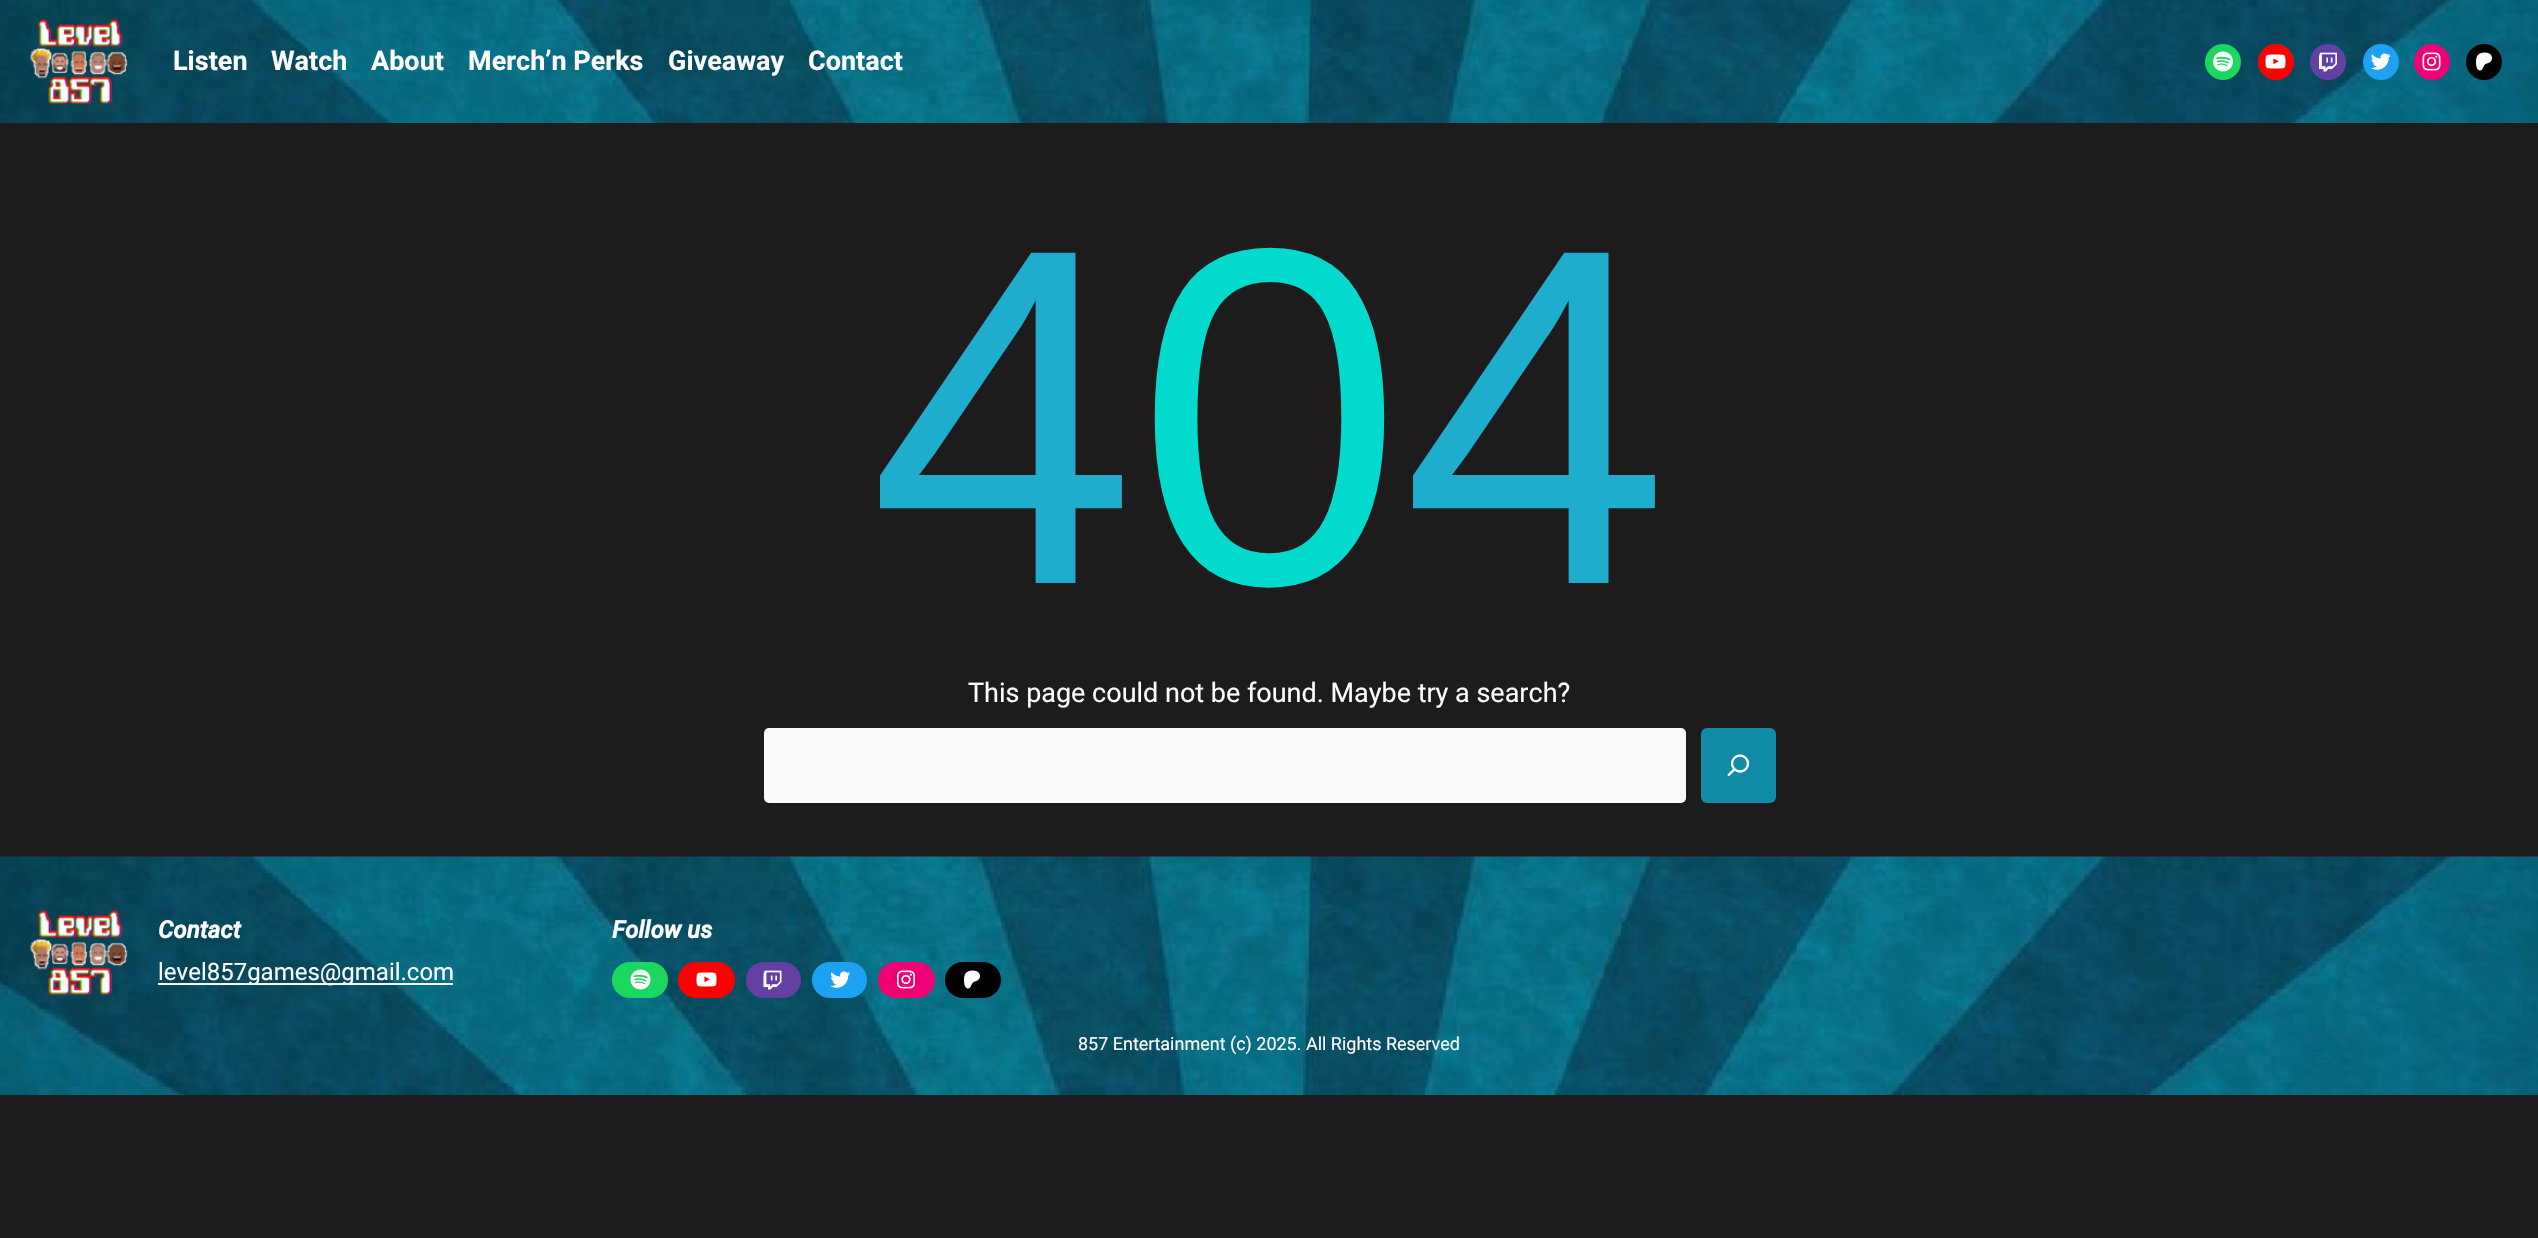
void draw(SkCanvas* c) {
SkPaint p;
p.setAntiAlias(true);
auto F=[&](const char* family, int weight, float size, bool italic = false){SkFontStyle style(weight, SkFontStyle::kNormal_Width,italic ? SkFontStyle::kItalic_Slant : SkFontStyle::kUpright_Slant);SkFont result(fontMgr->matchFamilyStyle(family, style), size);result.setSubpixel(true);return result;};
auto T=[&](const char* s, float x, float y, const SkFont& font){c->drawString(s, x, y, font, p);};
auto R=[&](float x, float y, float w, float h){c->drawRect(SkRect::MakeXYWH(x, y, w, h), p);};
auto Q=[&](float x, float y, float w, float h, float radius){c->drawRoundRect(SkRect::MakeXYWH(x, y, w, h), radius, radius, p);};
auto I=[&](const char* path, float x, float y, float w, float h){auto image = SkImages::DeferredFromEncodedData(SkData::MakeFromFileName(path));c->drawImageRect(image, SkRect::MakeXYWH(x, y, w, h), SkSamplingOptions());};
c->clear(0xff1d1b1b);
I("1.png",0,0,2538,123);
I("2.png",30,19,98,86);
auto f1 = F("Roboto",700,27);
p.setColor(0xffffffff);
T("Listen",173,70,f1);
T("Watch",271,70,f1);
T("About",371,70,f1);
T("Merch’n Perks",468,70,f1);
T("Giveaway",668,70,f1);
T("Contact",808,70,f1);
p.setColor(0xff1bd760);
c->drawCircle(2223,62,18,p);
I("3.png",2213,51,20,21);
p.setColor(0xffff0000);
c->drawCircle(2276,62,18,p);
I("4.png",2265,54,21,15);
p.setColor(0xff6440a4);
c->drawCircle(2328,62,18,p);
I("5.png",2319,52,18,20);
p.setColor(0xff1da1f2);
c->drawCircle(2381,62,18,p);
I("6.png",2371,53,20,17);
p.setColor(0xfff00075);
c->drawCircle(2432,62,18,p);
I("7.png",2422,52,19,19);
p.setColor(0xff000000);
c->drawCircle(2484,62,18,p);
I("8.png",2476,52,16,19);
auto f2 = F("Liberation Sans",400,480);
p.setColor(0xff1eadcd);
T("4",869,583,f2);
p.setColor(0xff01dacc);
T("0",1136,583,f2);
p.setColor(0xff1eadcd);
T("4",1402,583,f2);
auto f3 = F("Roboto",400,27);
p.setColor(0xffffffff);
T("This page could not be found. Maybe try a search?",968,702,f3);
p.setColor(0xfffafafa);
Q(764,728,922,75,5);
p.setColor(0xff108ca9);
Q(1701,728,75,75,6);
I("9.png",1727,754,23,23);
I("10.png",0,856,2538,239);
I("11.png",30,910,98,86);
auto f4 = F("Roboto",700,24,true);
p.setColor(0xffffffff);
T("Contact",158,938,f4);
R(158,983,295,2);
auto f5 = F("Roboto",400,24);
T("level857games@gmail.com",158,980,f5);
T("Follow us",612,938,f4);
p.setColor(0xff1bd760);
Q(612,962,56,36,18);
I("12.png",630,969,21,21);
p.setColor(0xffff0000);
Q(678,962,57,36,18);
I("4.png",696,972,21,15);
p.setColor(0xff6440a4);
Q(746,962,55,36,18);
I("13.png",763,970,19,20);
p.setColor(0xff1da1f2);
Q(812,962,55,36,18);
I("14.png",830,971,21,17);
p.setColor(0xfff00075);
Q(878,962,57,36,18);
I("15.png",897,970,18,19);
p.setColor(0xff000000);
Q(945,962,56,36,18);
I("8.png",964,970,16,19);
auto f6 = F("Roboto",400,18);
p.setColor(0xffffffff);
T("857 Entertainment (c) 2025. All Rights Reserved",1078,1050,f6);
}
